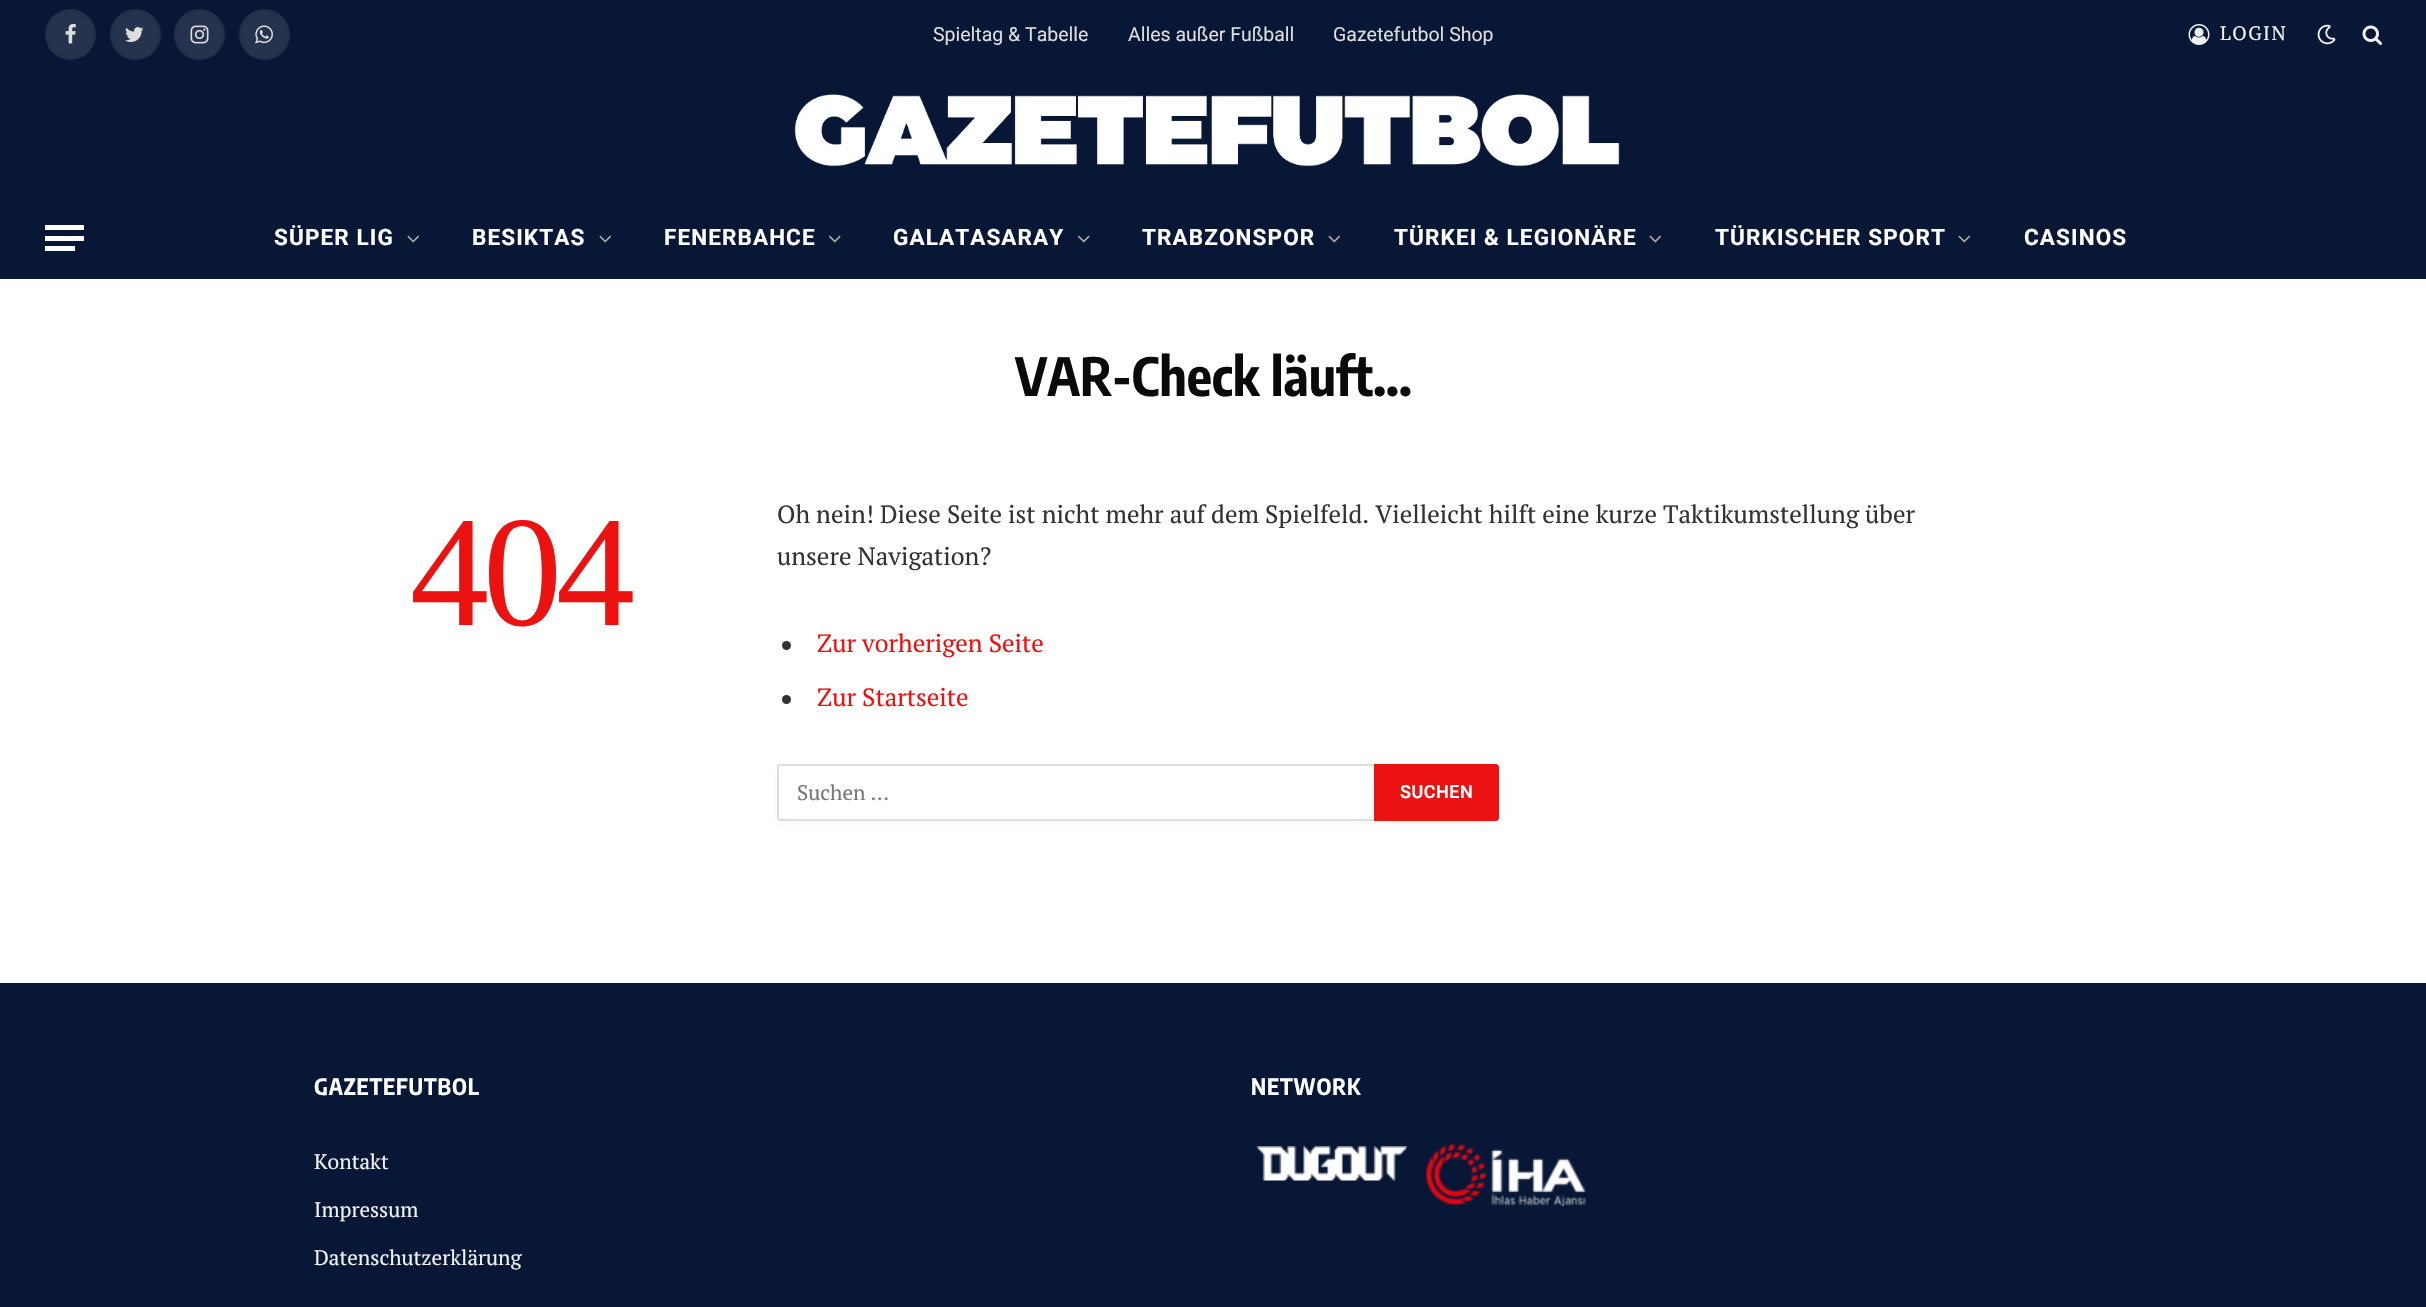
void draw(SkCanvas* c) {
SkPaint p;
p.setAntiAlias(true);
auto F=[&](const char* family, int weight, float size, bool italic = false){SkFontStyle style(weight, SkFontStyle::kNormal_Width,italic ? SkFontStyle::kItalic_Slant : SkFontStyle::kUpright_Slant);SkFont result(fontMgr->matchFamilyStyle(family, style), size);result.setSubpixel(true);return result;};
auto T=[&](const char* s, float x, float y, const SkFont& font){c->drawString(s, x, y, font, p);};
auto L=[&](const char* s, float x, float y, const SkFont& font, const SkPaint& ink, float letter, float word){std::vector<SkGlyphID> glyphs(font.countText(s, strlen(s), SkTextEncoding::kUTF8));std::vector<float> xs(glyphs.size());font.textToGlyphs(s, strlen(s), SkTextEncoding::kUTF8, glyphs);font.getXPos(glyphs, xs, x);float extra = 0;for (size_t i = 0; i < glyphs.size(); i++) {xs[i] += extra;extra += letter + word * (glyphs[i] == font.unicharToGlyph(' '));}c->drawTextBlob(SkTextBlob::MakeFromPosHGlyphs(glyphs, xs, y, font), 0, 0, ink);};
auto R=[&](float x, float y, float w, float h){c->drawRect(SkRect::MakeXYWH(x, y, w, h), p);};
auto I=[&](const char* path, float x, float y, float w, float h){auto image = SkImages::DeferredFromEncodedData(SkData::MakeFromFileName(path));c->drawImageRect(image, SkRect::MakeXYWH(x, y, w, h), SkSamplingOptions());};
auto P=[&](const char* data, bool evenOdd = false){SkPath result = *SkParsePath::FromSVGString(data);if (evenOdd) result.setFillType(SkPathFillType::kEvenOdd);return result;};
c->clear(0xffffffff);
p.setColor(0xff081736);
R(0,0,2426,279);
p.setColor(0xff26334e);
c->drawCircle(70.5,34.5,25.5,p);
p.setStroke(true);
p.setStrokeWidth(2);
p.setColor(0x17000000);
c->drawCircle(70.5,34.5,24.5,p);
I("1.png",65,24,11,20);
p.setStroke(false);
p.setColor(0xff26334e);
c->drawCircle(135.5,34.5,25.5,p);
p.setStroke(true);
p.setColor(0x17000000);
c->drawCircle(135.5,34.5,24.5,p);
I("2.png",125,27,19,15);
p.setStroke(false);
p.setColor(0xff26334e);
c->drawCircle(199.5,34.5,25.5,p);
p.setStroke(true);
p.setColor(0x17000000);
c->drawCircle(199.5,34.5,24.5,p);
I("3.png",190,25,19,19);
p.setStroke(false);
p.setColor(0xff26334e);
c->drawCircle(264.5,34.5,25.5,p);
p.setStroke(true);
p.setColor(0x17000000);
c->drawCircle(264.5,34.5,24.5,p);
I("4.png",255,25,18,19);
auto f1 = F("Roboto",400,19.5);
p.setStroke(false);
p.setColor(0xffdddddd);
T("Spieltag & Tabelle",933,41,f1);
T("Alles außer Fußball",1128,41,f1);
T("Gazetefutbol Shop",1333,41,f1);
I("5.png",2188,24,22,21);
auto f2 = F("PT Serif",400,19.5);
p.setColor(0xfff0f0f0);
L("LOGIN",2220,40,f2,p,1.5,0);
I("6.png",2317,24,19,21);
I("7.png",2362,25,20,20);
I("8.png",794,94,826,73);
p.setColor(0xffffffff);
R(45,246,30,5);
R(45,225,39,5);
R(45,236,39,5);
auto f3 = F("Roboto",700,22.5);
L("SÜPER LIG",274,245,f3,p,1.1,0);
I("9.png",407,235,13,8);
L("BESIKTAS",472,245,f3,p,1.1,0);
I("9.png",599,235,13,8);
L("FENERBAHCE",664,245,f3,p,1.1,0);
I("10.png",828,235,13,8);
L("GALATASARAY",893,245,f3,p,1.1,0);
I("10.png",1077,235,13,8);
L("TRABZONSPOR",1142,245,f3,p,1.1,0);
I("9.png",1328,235,13,8);
L("TÜRKEI & LEGIONÄRE",1394,245,f3,p,1.1,0);
I("9.png",1649,235,13,8);
L("TÜRKISCHER SPORT",1715,245,f3,p,1.1,0);
I("9.png",1958,235,13,8);
L("CASINOS",2024,245,f3,p,1.1,0);
auto f4 = F("Encode Sans Condensed",700,52.5);
p.setColor(0xff0a0a0a);
T("VAR-Check läuft...",1015,396,f4);
auto f5 = F("Liberation Serif",400,158);
p.setColor(0xffed1212);
L("404",410,625,f5,p,-6,0);
auto f6 = F("PT Serif",400,24.9);
p.setColor(0xff333333);
T("Oh nein! Diese Seite ist nicht mehr auf dem Spielfeld. Vielleicht hilft eine kurze Taktikumstellung über",777,523,f6);
T("unsere Navigation?",777,565,f6);
c->drawCircle(786.5,645.5,4.5,p);
p.setColor(0xffed1212);
T("Zur vorherigen Seite",817,652,f6);
p.setColor(0xff333333);
c->drawCircle(786.5,699.5,4.5,p);
p.setColor(0xffed1212);
T("Zur Startseite",817,706,f6);
p.setColor(0x1a000000);
p.setMaskFilter(SkMaskFilter::MakeBlur(kNormal_SkBlurStyle, 5));
c->drawRect(SkRect::MakeXYWH(783,773,588,45),p);
p.setMaskFilter(nullptr);
p.setColor(0xffffffff);
c->drawRoundRect(SkRect::MakeXYWH(778,765,598,55),2,2,p);
p.setStroke(true);
p.setColor(0xffdddddd);
c->drawRoundRect(SkRect::MakeXYWH(778,765,598,55),2,2,p);
auto f7 = F("PT Serif",400,21);
p.setStroke(false);
p.setColor(0xff777777);
T("Suchen …",797,800,f7);
p.setColor(0x29000000);
p.setMaskFilter(SkMaskFilter::MakeBlur(kNormal_SkBlurStyle, 5));
c->drawRect(SkRect::MakeXYWH(1380,773,113,45),p);
p.setMaskFilter(nullptr);
p.setColor(0xffed1212);
c->drawPath(P("M1374 764h122c1.5 0 3 1.5 3 3v51c0 1.5-1.5 3-3 3h-122z"),p);
auto f8 = F("Roboto",600,18);
p.setColor(0xffffffff);
L("SUCHEN",1400,798,f8,p,.5,0);
p.setColor(0xff081736);
R(0,983,2426,324);
auto f9 = F("Encode Sans Condensed",700,22.5);
p.setColor(0xffffffff);
L("GAZETEFUTBOL",314,1095,f9,p,.9,0);
p.setColor(0xfff0f0f0);
T("Kontakt",314,1169,f7);
T("Impressum",314,1217,f7);
T("Datenschutzerklärung",314,1265,f7);
p.setColor(0xffffffff);
L("NETWORK",1251,1095,f9,p,.9,0);
I("11.png",1257,1146,150,35);
I("12.png",1426,1144,160,62);
}
